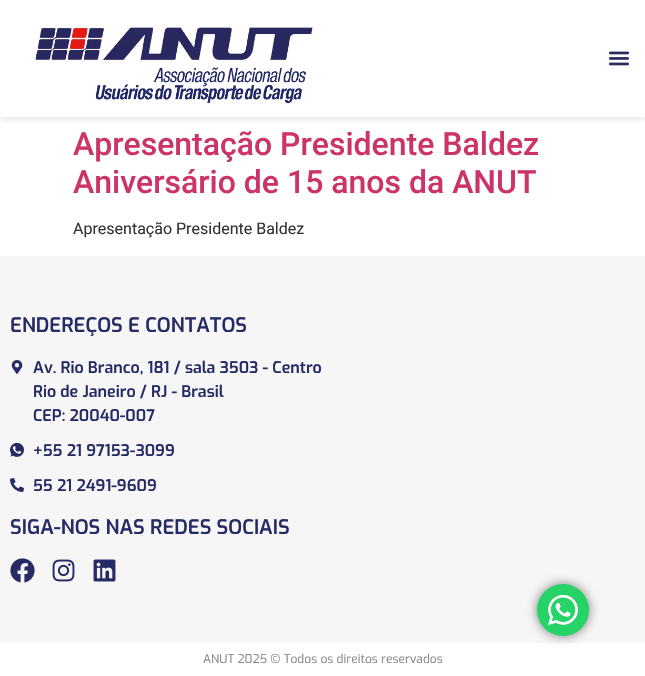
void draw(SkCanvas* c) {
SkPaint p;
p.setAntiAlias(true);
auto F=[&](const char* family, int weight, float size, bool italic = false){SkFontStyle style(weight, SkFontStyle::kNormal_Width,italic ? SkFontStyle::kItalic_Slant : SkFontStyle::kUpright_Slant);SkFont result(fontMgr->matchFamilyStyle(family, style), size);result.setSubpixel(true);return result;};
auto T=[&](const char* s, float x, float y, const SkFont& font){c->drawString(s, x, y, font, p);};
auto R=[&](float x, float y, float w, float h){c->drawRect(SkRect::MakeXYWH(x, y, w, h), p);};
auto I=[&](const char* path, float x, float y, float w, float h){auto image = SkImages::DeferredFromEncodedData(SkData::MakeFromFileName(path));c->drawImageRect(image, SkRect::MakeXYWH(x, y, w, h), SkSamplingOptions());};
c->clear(0xffffffff);
c->save();
c->clipRect(SkRect::MakeXYWH(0,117,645,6));
p.setColor(0x29000000);
p.setMaskFilter(SkMaskFilter::MakeBlur(kNormal_SkBlurStyle, 5));
c->drawRect(SkRect::MakeXYWH(0,0,645,117),p);
p.setMaskFilter(nullptr);
c->restore();
I("1.png",35,27,278,77);
I("2.png",608,51,22,15);
auto f1 = F("Roboto",500,32);
p.setColor(0xffcc3366);
T("Apresentação Presidente Baldez",73,155,f1);
T("Aniversário de 15 anos da ANUT",73,193,f1);
auto f2 = F("Roboto",400,16);
p.setColor(0xff333333);
T("Apresentação Presidente Baldez",73,234,f2);
p.setColor(0xfff6f6f6);
R(0,256,645,387);
auto f3 = F("Exo",600,20);
p.setColor(0xff262b65);
T("ENDEREÇOS E CONTATOS",10,332,f3);
I("3.png",11,360,12,14);
auto f4 = F("Exo",600,16);
T("Av. Rio Branco, 181 / sala 3503 - Centro",33,373,f4);
T("Rio de Janeiro / RJ - Brasil",33,397,f4);
T("CEP: 20040-007",33,421,f4);
I("4.png",10,442,14,15);
T("+55 21 97153-3099",33,456,f4);
I("5.png",10,478,14,14);
T("55 21 2491-9609",33,491,f4);
T("SIGA-NOS NAS REDES SOCIAIS",10,534,f3);
I("6.png",10,558,25,25);
I("7.png",52,559,23,23);
I("8.png",93,559,23,23);
auto f5 = F("Exo",400,12);
p.setColor(0xff858585);
T("ANUT 2025 © Todos os direitos reservados",203,663,f5);
p.setColor(0x80000000);
p.setMaskFilter(SkMaskFilter::MakeBlur(kNormal_SkBlurStyle, 5.5));
c->drawRoundRect(SkRect::MakeXYWH(537,584,52,52),26,26,p);
p.setMaskFilter(nullptr);
p.setColor(0xff25d366);
c->drawCircle(563,610,26,p);
I("9.png",548,595,30,30);
}
